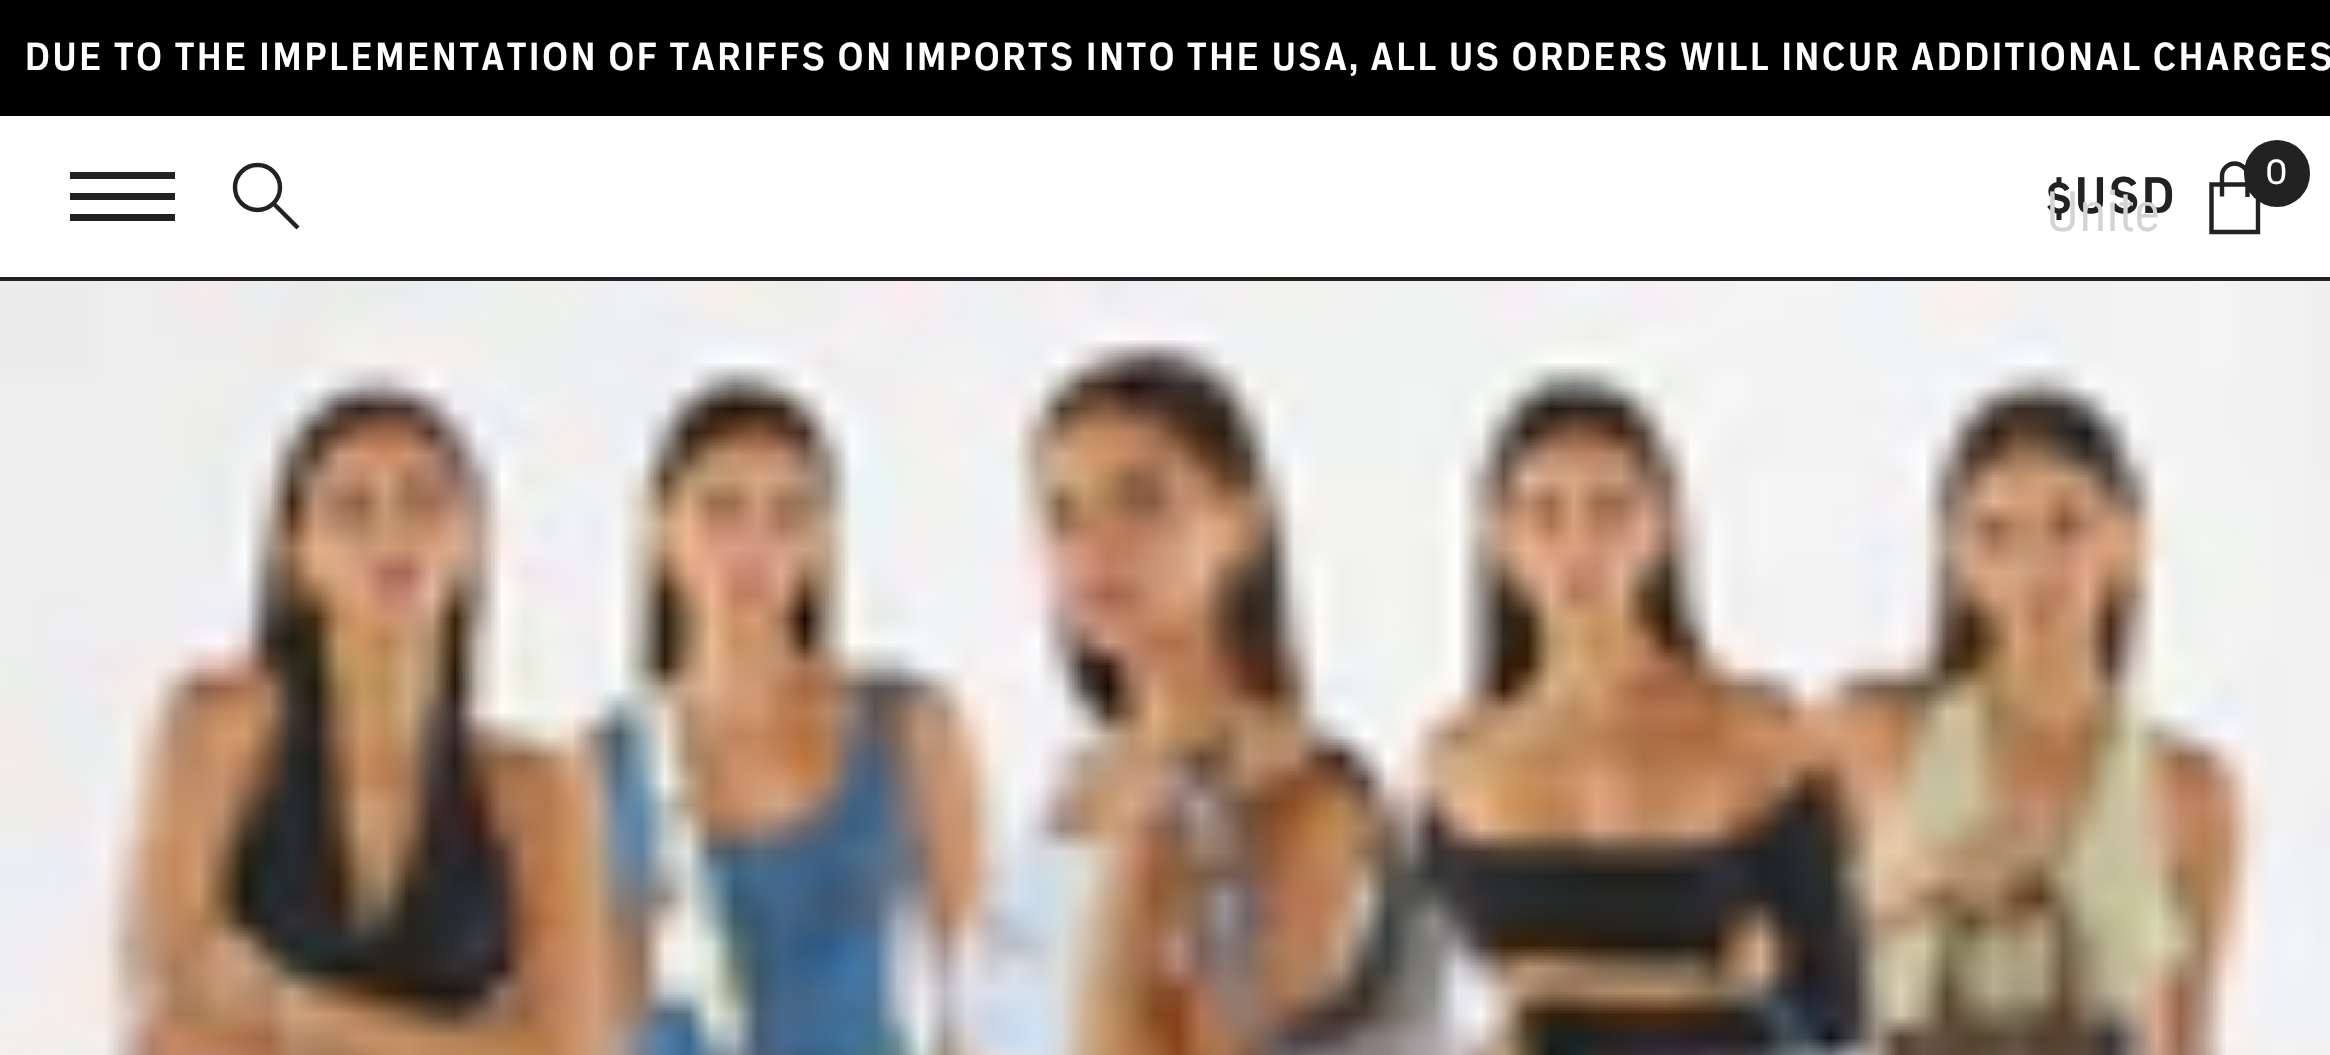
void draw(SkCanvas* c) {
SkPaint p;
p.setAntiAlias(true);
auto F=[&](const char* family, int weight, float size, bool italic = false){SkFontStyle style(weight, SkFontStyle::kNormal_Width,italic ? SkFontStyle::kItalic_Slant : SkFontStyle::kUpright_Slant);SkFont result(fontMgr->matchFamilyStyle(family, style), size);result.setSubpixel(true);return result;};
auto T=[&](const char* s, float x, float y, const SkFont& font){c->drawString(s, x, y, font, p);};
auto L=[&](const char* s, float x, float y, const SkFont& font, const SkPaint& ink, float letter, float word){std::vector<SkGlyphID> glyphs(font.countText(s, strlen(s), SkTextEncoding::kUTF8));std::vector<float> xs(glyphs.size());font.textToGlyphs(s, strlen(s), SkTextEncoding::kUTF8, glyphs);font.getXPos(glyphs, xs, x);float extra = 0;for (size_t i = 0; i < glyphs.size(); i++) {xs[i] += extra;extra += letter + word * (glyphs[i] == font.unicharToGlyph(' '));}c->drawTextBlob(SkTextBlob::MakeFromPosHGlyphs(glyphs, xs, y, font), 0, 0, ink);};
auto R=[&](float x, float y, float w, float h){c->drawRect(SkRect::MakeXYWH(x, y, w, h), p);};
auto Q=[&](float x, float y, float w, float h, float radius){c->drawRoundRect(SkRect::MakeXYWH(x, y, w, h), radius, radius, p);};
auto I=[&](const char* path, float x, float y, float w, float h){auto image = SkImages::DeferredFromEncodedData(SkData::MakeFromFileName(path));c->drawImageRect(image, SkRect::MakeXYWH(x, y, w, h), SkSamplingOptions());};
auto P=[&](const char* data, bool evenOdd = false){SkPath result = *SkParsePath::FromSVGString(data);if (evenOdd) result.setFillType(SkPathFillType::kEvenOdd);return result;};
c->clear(0xffffffff);
p.setColor(0xff000000);
R(0,0,2330,116);
auto f1 = F("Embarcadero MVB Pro",700,38.5);
p.setColor(0xffffffff);
L("DUE TO THE IMPLEMENTATION OF TARIFFS ON IMPORTS INTO THE USA, ALL US ORDERS WILL INCUR ADDITIONAL CHARGES",25,70,f1,p,2.8,0);
p.setColor(0xff222222);
R(0,277,2330,4);
R(70,172,105,7);
R(70,214,105,7);
R(70,193,105,7);
p.setStroke(true);
p.setStrokeWidth(4.4);
c->drawCircle(257.5,187.5,22.5,p);
c->drawPath(P("M273.5 203.5l24.5 24.5"),p);
c->drawPath(P("M2258 184.5h-46.5v47.5h46.5z"),p);
c->drawPath(P("M2222 196.5v-20.5c0-7 6-12.5 12.5-12.5c7 0 13 5.5 13 12.5v21"),p);
p.setStroke(false);
Q(2244,140,66,67,33);
auto f2 = F("Embarcadero MVB Pro",400,42);
p.setColor(0xffffffff);
T("0",2265,184,f2);
auto f3 = F("Embarcadero MVB Pro",700,50.5);
p.setColor(0xff222222);
L("$USD",2046,213,f3,p,2.8,0);
auto f4 = F("Embarcadero MVB Pro",400,56);
p.setColor(0xffd4d4d4);
T("Unite",2046,231,f4);
I("1.png",0,281,2330,774);
}
